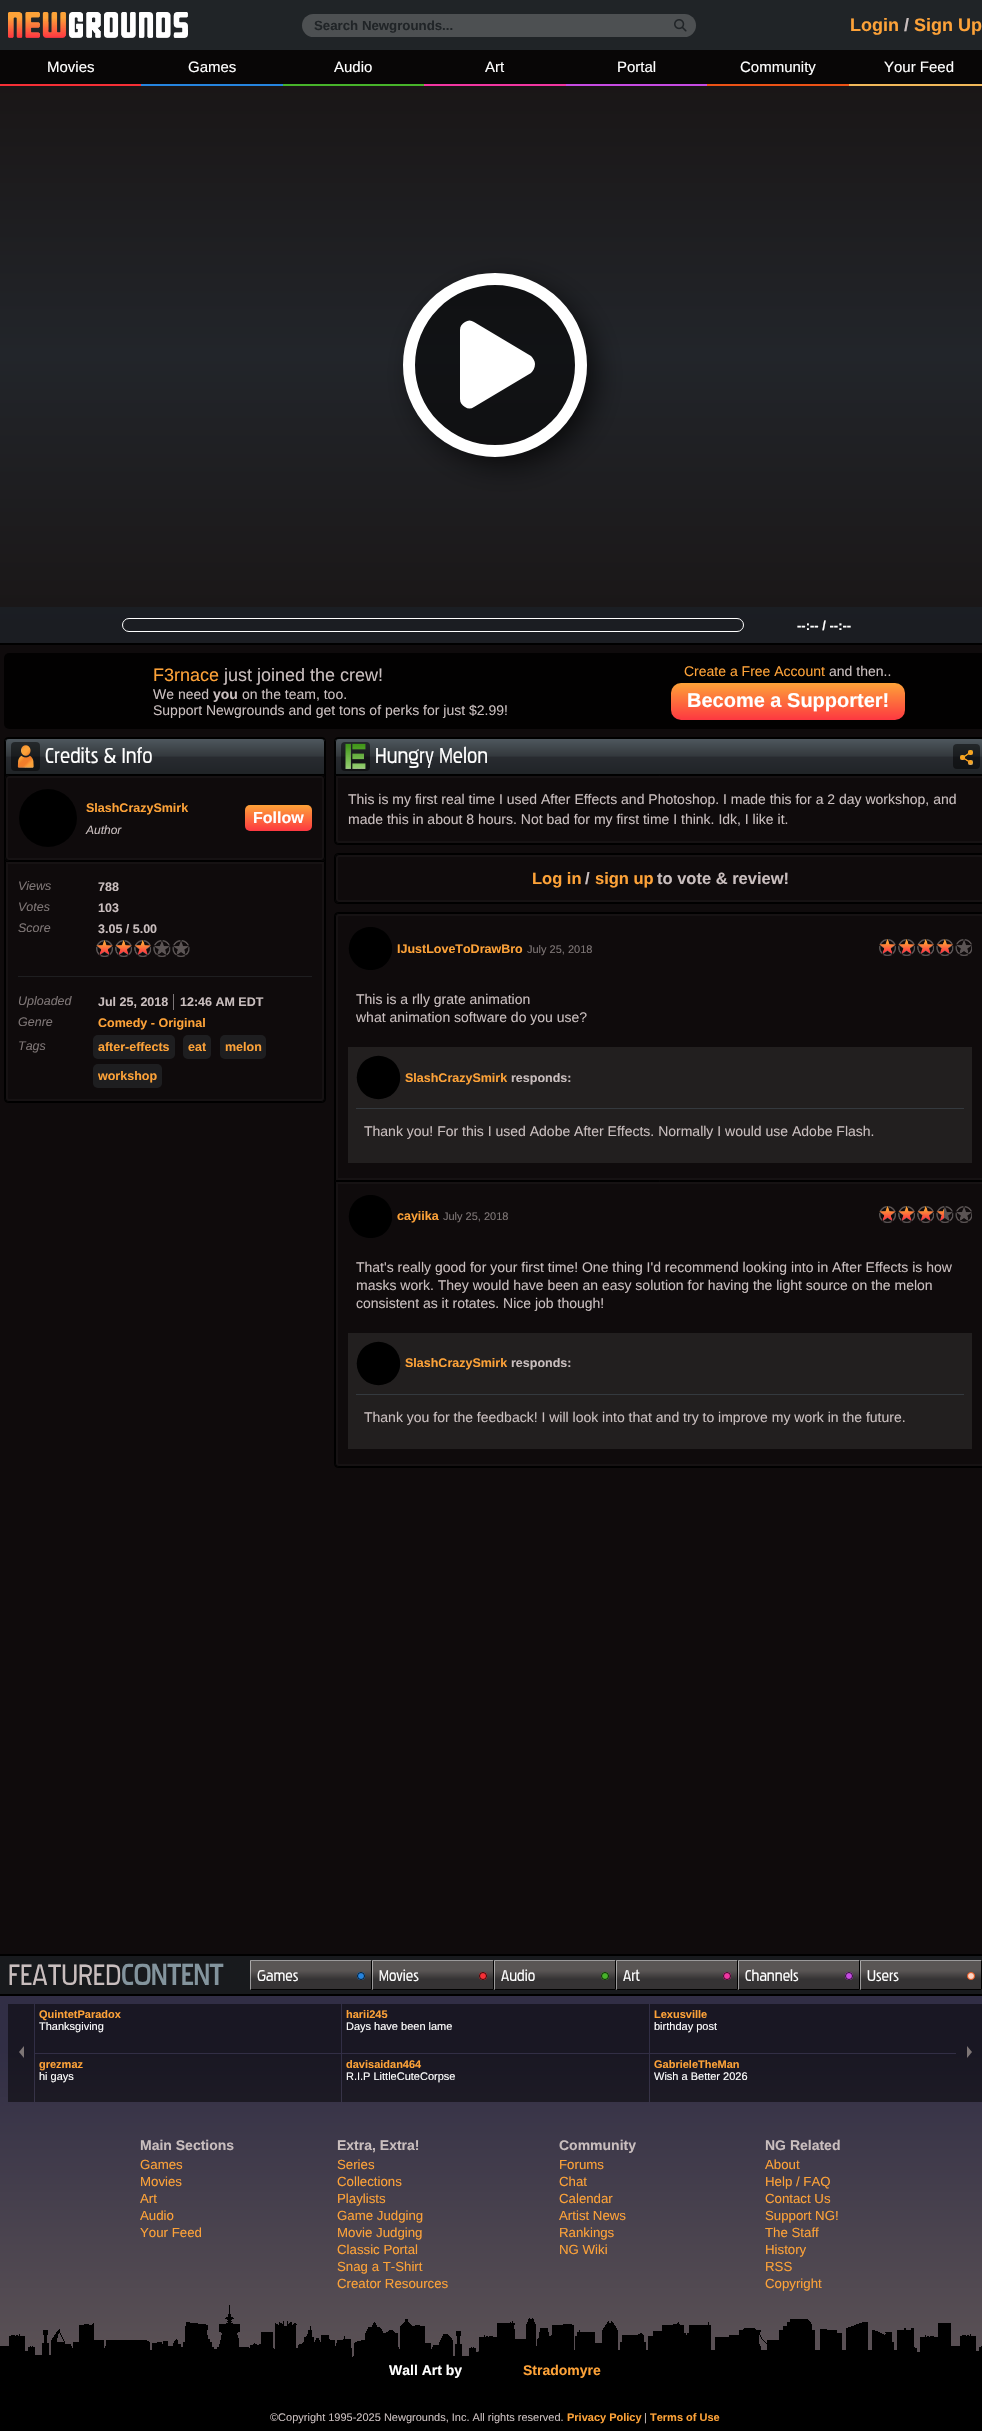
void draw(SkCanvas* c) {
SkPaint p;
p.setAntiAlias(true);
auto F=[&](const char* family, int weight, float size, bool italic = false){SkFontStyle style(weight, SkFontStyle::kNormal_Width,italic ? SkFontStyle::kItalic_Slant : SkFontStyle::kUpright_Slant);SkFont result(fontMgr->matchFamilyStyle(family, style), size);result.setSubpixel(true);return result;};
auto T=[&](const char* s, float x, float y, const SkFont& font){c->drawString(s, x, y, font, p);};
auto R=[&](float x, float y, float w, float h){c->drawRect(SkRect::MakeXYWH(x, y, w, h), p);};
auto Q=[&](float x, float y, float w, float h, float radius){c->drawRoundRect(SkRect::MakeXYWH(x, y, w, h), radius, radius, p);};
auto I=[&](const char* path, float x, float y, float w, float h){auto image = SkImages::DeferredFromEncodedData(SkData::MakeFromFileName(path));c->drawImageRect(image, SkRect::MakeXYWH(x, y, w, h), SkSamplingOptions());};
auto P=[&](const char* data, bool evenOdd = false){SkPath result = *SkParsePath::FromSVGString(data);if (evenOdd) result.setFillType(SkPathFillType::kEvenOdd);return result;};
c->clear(0xff0f0b0c);
p.setColor(0xff202427);
R(0,0,982,50);
I("1.png",8,12,180,26);
p.setColor(0xff4d5052);
Q(302,14,394,23,11.5);
auto f1 = F("Liberation Sans",700,13.25);
p.setColor(0xff202427);
T("Search Newgrounds...",314,30,f1);
I("2.png",674,19,13,13);
auto f2 = F("Liberation Sans",700,18);
p.setColor(0xfffda238);
T("Login",850,31,f2);
p.setColor(0xffc9bebe);
T("/",904,31,f2);
p.setColor(0xfffda238);
T("Sign Up",914,31,f2);
p.setColor(0xff080606);
R(0,50,982,34);
p.setColor(0xfff62f36);
R(0,84,141,2);
auto f3 = F("Liberation Sans",400,15);
p.setColor(0xffffffff);
T("Movies",47,72,f3);
p.setColor(0xff2684de);
R(141,84,142,2);
p.setColor(0xffffffff);
T("Games",188,72,f3);
p.setColor(0xff47b32a);
R(283,84,141,2);
p.setColor(0xffffffff);
T("Audio",334,72,f3);
p.setColor(0xfff136a1);
R(424,84,142,2);
p.setColor(0xffffffff);
T("Art",485,72,f3);
p.setColor(0xffc64be2);
R(566,84,141,2);
p.setColor(0xffffffff);
T("Portal",617,72,f3);
p.setColor(0xffec5216);
R(707,84,142,2);
p.setColor(0xffffffff);
T("Community",740,72,f3);
p.setColor(0xfff1b859);
R(849,84,133,2);
p.setColor(0xffffffff);
T("Your Feed",884,72,f3);
{
const SkColor colors[] = {0xff191515,0xff22252a,0xff191515};
const float stops[] = {0,.5,1};
const SkPoint ends[] = {{495,66}, {495,643}};
p.setShader(SkGradientShader::MakeLinear(ends, colors, stops, 3, SkTileMode::kClamp));
p.setAlpha(255);
}
R(0,86,982,521);
{
const SkColor colors[] = {0xff1b1d22,0xff1e2228,0xff1b1d22};
const float stops[] = {0,.5,1};
const SkPoint ends[] = {{495,66}, {495,643}};
p.setShader(SkGradientShader::MakeLinear(ends, colors, stops, 3, SkTileMode::kClamp));
p.setAlpha(255);
}
R(0,607,982,36);
p.setShader(nullptr);
p.setColor(0xff000000);
R(0,643,982,2);
c->save();
c->clipPath(P("M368 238h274v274h-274zm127 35c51 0 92 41 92 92c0 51-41 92-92 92c-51 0-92-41-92-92c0-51 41-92 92-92z",true),true);
p.setColor(0xbf000000);
p.setMaskFilter(SkMaskFilter::MakeBlur(kNormal_SkBlurStyle, 15.5));
c->drawRoundRect(SkRect::MakeXYWH(416,286,178,178),89,89,p);
p.setMaskFilter(nullptr);
c->restore();
p.setColor(0x80000000);
c->drawCircle(495,365,86,p);
p.setStroke(true);
p.setStrokeWidth(12);
p.setColor(0xffffffff);
c->drawCircle(495,365,86,p);
p.setStroke(false);
c->drawPath(P("M474 322c-3-2-6-2-9 0c-3 2-5 4-5 8v69c0 4 2 6 5 8c3 2 6 2 9 0l57-34c2-2 4-5 4-9c0-3-2-6-4-8z"),p);
p.setStroke(true);
p.setStrokeWidth(1);
c->drawRoundRect(SkRect::MakeXYWH(122.5,618.5,621,13),6.5,6.5,p);
auto f4 = F("Liberation Sans",700,13);
p.setStroke(false);
T("--:-- / --:--",797,630,f4);
p.setColor(0xff020101);
Q(4,653,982,76,5);
auto f5 = F("Liberation Sans",400,18);
p.setColor(0xfffda238);
T("F3rnace",153,681,f5);
p.setColor(0xffc9bebe);
T("just joined the crew!",224,681,f5);
auto f6 = F("Liberation Sans",400,14);
T("We need",153,699,f6);
auto f7 = F("Liberation Sans",700,14);
T("you",213,699,f7);
T("on the team, too.",242,699,f6);
T("Support Newgrounds and get tons of perks for just $2.99!",153,715,f6);
p.setColor(0xfffda238);
T("Create a Free Account",684,676,f6);
p.setColor(0xffc9bebe);
T("and then..",829,676,f6);
{
const SkColor colors[] = {0xfffda238,0xfffd3841};
const float stops[] = {0,1};
const SkPoint ends[] = {{788,683}, {788,720}};
p.setShader(SkGradientShader::MakeLinear(ends, colors, stops, 2, SkTileMode::kClamp));
p.setAlpha(255);
}
Q(671,683,234,37,10);
auto f8 = F("Liberation Sans",700,20);
p.setShader(nullptr);
p.setColor(0xffffffff);
T("Become a Supporter!",687,707,f8);
p.setColor(0xff000000);
c->drawRoundRect(SkRect::MakeXYWH(4.5,737.5,321,365),3.5,3.5,p);
p.setStroke(true);
c->drawRoundRect(SkRect::MakeXYWH(4.5,737.5,321,365),3.5,3.5,p);
c->save();
c->clipPath(P("M9 738h312c2 0 4 2 4 4v33h-320v-33c0-2 2-4 4-4z"),true);
p.setStroke(false);
{
const SkColor colors[] = {0xff4e575e,0xff34393d,0xff282b30,0xff202427};
const float stops[] = {0,.48,.53,1};
const SkPoint ends[] = {{165,739}, {165,774}};
p.setShader(SkGradientShader::MakeLinear(ends, colors, stops, 4, SkTileMode::kClamp));
p.setAlpha(255);
}
R(5,739,320,35);
c->restore();
p.setStroke(true);
p.setShader(nullptr);
p.setColor(0xff000000);
c->drawPath(P("M9 738.5h312c2 0 3.5 1.5 3.5 3.5v32.5h-319v-32.5c0-2 1.5-3.5 3.5-3.5z"),p);
p.setStroke(false);
p.setColor(0x80000000);
Q(11,742,29,29,4);
I("3.png",17,745,17,23);
auto f9 = F("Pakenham",400,22);
p.setColor(0xffffffff);
T("Credits & Info",45,763,f9);
p.setColor(0xff0f0b0c);
Q(5,775,320,86,4);
p.setStroke(true);
p.setStrokeWidth(2);
p.setColor(0xff161213);
c->drawRoundRect(SkRect::MakeXYWH(7,777,316,82),2,2,p);
p.setStrokeWidth(1);
p.setColor(0xff000000);
c->drawRoundRect(SkRect::MakeXYWH(5.5,775.5,319,85),3.5,3.5,p);
I("4.png",19,789,58,58);
auto f10 = F("Liberation Sans",700,12.5);
p.setStroke(false);
p.setColor(0xfffda238);
T("SlashCrazySmirk",86,812,f10);
auto f11 = F("Liberation Sans",400,12,true);
p.setColor(0xffc9bebe);
T("Author",86,834,f11);
{
const SkColor colors[] = {0xfffda238,0xfffd3841};
const float stops[] = {0,1};
const SkPoint ends[] = {{279,805}, {279,831}};
p.setShader(SkGradientShader::MakeLinear(ends, colors, stops, 2, SkTileMode::kClamp));
p.setAlpha(255);
}
Q(245,805,67,26,5);
auto f12 = F("Liberation Sans",700,16);
p.setShader(nullptr);
p.setColor(0xffffffff);
T("Follow",253,823,f12);
p.setColor(0xff0f0b0c);
c->drawPath(P("M5 861h320v237c0 2-2 4-4 4h-312c-2 0-4-2-4-4z"),p);
p.setStroke(true);
p.setStrokeWidth(2);
p.setColor(0xff161213);
c->drawPath(P("M7 863h316v235c0 1-1 2-2 2h-312c-1 0-2-1-2-2z"),p);
p.setStrokeWidth(1);
p.setColor(0xff000000);
c->drawPath(P("M5.5 861.5h319v236.5c0 2-1.5 3.5-3.5 3.5h-312c-2 0-3.5-1.5-3.5-3.5z"),p);
auto f13 = F("Liberation Sans",400,12.5,true);
p.setStroke(false);
p.setColor(0xff7d7575);
T("Views",18,890,f13);
p.setColor(0xffc9bebe);
T("788",98,891,f10);
p.setColor(0xff7d7575);
T("Votes",18,911,f13);
p.setColor(0xffc9bebe);
T("103",98,912,f10);
p.setColor(0xff7d7575);
T("Score",18,932,f13);
p.setColor(0xffc9bebe);
T("3.05 / 5.00",98,933,f10);
I("5.png",96,940,94,17);
I("6.png",96,940,55,16);
p.setColor(0xff1e1e20);
R(18,976,294,1);
p.setColor(0xff7d7575);
T("Uploaded",18,1005,f13);
p.setColor(0xffc9bebe);
T("Jul 25, 2018",98,1006,f10);
p.setColor(0xff7c7678);
R(173,994,1,16);
p.setColor(0xffc9bebe);
T("12:46 AM EDT",180,1006,f10);
p.setColor(0xff7d7575);
T("Genre",18,1026,f13);
p.setColor(0xfffda238);
T("Comedy - Original",98,1027,f10);
p.setColor(0xff7d7575);
T("Tags",18,1050,f13);
p.setColor(0xff1e1e20);
Q(93,1035,82,24,5);
p.setColor(0xfffda238);
T("after-effects",98,1051,f10);
p.setColor(0xff1e1e20);
Q(183,1035,28,24,5);
p.setColor(0xfffda238);
T("eat",188,1051,f10);
p.setColor(0xff1e1e20);
Q(220,1035,46,24,5);
p.setColor(0xfffda238);
T("melon",225,1051,f10);
p.setColor(0xff1e1e20);
Q(93,1064,69,24,5);
p.setColor(0xfffda238);
T("workshop",98,1080,f10);
p.setColor(0xff000000);
c->drawRoundRect(SkRect::MakeXYWH(334.5,737.5,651,107),3.5,3.5,p);
p.setStroke(true);
c->drawRoundRect(SkRect::MakeXYWH(334.5,737.5,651,107),3.5,3.5,p);
c->save();
c->clipPath(P("M339 738h642c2 0 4 2 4 4v33h-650v-33c0-2 2-4 4-4z"),true);
p.setStroke(false);
{
const SkColor colors[] = {0xff4e575e,0xff34393d,0xff282b30,0xff202427};
const float stops[] = {0,.48,.53,1};
const SkPoint ends[] = {{660,739}, {660,774}};
p.setShader(SkGradientShader::MakeLinear(ends, colors, stops, 4, SkTileMode::kClamp));
p.setAlpha(255);
}
R(335,739,647,35);
c->restore();
p.setStroke(true);
p.setShader(nullptr);
p.setColor(0xff000000);
c->drawPath(P("M339 738.5h642c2 0 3.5 1.5 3.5 3.5v32.5h-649v-32.5c0-2 1.5-3.5 3.5-3.5z"),p);
p.setStroke(false);
p.setColor(0x80000000);
Q(341,742,29,29,4);
I("7.png",345,743,21,26);
p.setColor(0xffffffff);
T("Hungry Melon",375,763,f9);
p.setColor(0x80000000);
Q(953,744,27,25,4);
I("8.png",960,750,13,15);
p.setColor(0xff0f0b0c);
c->drawPath(P("M335 775h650v65c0 2-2 4-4 4h-642c-2 0-4-2-4-4z"),p);
p.setStroke(true);
p.setStrokeWidth(2);
p.setColor(0xff161213);
c->drawPath(P("M337 777h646v63c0 1-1 2-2 2h-642c-1 0-2-1-2-2z"),p);
p.setStrokeWidth(1);
p.setColor(0xff000000);
c->drawPath(P("M335.5 775.5h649v64.5c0 2-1.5 3.5-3.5 3.5h-642c-2 0-3.5-1.5-3.5-3.5z"),p);
p.setStroke(false);
p.setColor(0xffc9bebe);
T("This is my first real time I used After Effects and Photoshop. I made this for a 2 day workshop, and",348,804,f6);
T("made this in about 8 hours. Not bad for my first time I think. Idk, I like it.",348,824,f6);
p.setColor(0xff000000);
c->drawRoundRect(SkRect::MakeXYWH(334.5,853.5,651,50),3.5,3.5,p);
p.setStroke(true);
c->drawRoundRect(SkRect::MakeXYWH(334.5,853.5,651,50),3.5,3.5,p);
p.setStroke(false);
p.setColor(0xff0f0b0c);
Q(335,854,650,49,4);
p.setStroke(true);
p.setStrokeWidth(2);
p.setColor(0xff161213);
c->drawRoundRect(SkRect::MakeXYWH(337,856,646,45),2,2,p);
p.setStrokeWidth(1);
p.setColor(0xff000000);
c->drawRoundRect(SkRect::MakeXYWH(335.5,854.5,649,48),3.5,3.5,p);
auto f14 = F("Liberation Sans",700,16.5);
p.setStroke(false);
p.setColor(0xfffda238);
T("Log in",532,884,f14);
p.setColor(0xffc9bebe);
T("/",585,884,f14);
p.setColor(0xfffda238);
T("sign up",595,884,f14);
p.setColor(0xffc9bebe);
T("to vote & review!",657,884,f14);
p.setColor(0xff000000);
c->drawRoundRect(SkRect::MakeXYWH(334.5,912.5,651,555),3.5,3.5,p);
p.setStroke(true);
c->drawRoundRect(SkRect::MakeXYWH(334.5,912.5,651,555),3.5,3.5,p);
p.setStroke(false);
p.setColor(0xff0f0b0c);
c->drawPath(P("M339 913h642c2 0 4 2 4 4v264h-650v-264c0-2 2-4 4-4z"),p);
p.setStroke(true);
p.setStrokeWidth(2);
p.setColor(0xff161213);
c->drawPath(P("M339 915h642c1 0 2 1 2 2v262h-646v-262c0-1 1-2 2-2z"),p);
p.setStrokeWidth(1);
p.setColor(0xff000000);
c->drawPath(P("M339 913.5h642c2 0 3.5 1.5 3.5 3.5v263.5h-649v-263.5c0-2 1.5-3.5 3.5-3.5z"),p);
I("9.png",348,927,44,43);
p.setStroke(false);
p.setColor(0xfffda238);
T("IJustLoveToDrawBro",397,953,f10);
auto f15 = F("Liberation Sans",400,11);
p.setColor(0xff7d7575);
T("July 25, 2018",527,953,f15);
I("10.png",879,939,93,17);
I("11.png",879,939,74,16);
p.setColor(0xffc9bebe);
T("This is a rlly grate animation",356,1004,f6);
T("what animation software do you use?",356,1022,f6);
p.setColor(0xff221f1f);
R(348,1047,624,116);
p.setColor(0xff34393e);
R(356,1108,608,1);
I("12.png",356,1055,45,45);
p.setColor(0xfffda238);
T("SlashCrazySmirk",405,1082,f10);
p.setColor(0xffc9bebe);
T("responds:",511,1082,f10);
T("Thank you! For this I used Adobe After Effects. Normally I would use Adobe Flash.",364,1136,f6);
p.setColor(0xff0f0b0c);
c->drawPath(P("M335 1181h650v282c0 2-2 4-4 4h-642c-2 0-4-2-4-4z"),p);
p.setStroke(true);
p.setStrokeWidth(2);
p.setColor(0xff161213);
c->drawPath(P("M337 1183h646v280c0 1-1 2-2 2h-642c-1 0-2-1-2-2z"),p);
p.setStrokeWidth(1);
p.setColor(0xff000000);
c->drawPath(P("M335.5 1181.5h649v281.5c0 2-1.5 3.5-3.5 3.5h-642c-2 0-3.5-1.5-3.5-3.5z"),p);
I("9.png",348,1195,44,43);
p.setStroke(false);
p.setColor(0xfffda238);
T("cayiika",397,1220,f10);
p.setColor(0xff7d7575);
T("July 25, 2018",443,1220,f15);
I("10.png",879,1206,93,17);
I("13.png",879,1206,65,16);
p.setColor(0xffc9bebe);
T("That's really good for your first time! One thing I'd recommend looking into in After Effects is how",356,1272,f6);
T("masks work. They would have been an easy solution for having the light source on the melon",356,1290,f6);
T("consistent as it rotates. Nice job though!",356,1308,f6);
p.setColor(0xff221f1f);
R(348,1333,624,116);
p.setColor(0xff34393e);
R(356,1394,608,1);
I("12.png",356,1341,45,45);
p.setColor(0xfffda238);
T("SlashCrazySmirk",405,1367,f10);
p.setColor(0xffc9bebe);
T("responds:",511,1367,f10);
T("Thank you for the feedback! I will look into that and try to improve my work in the future.",364,1422,f6);
{
const SkColor colors[] = {0xff312e45,0xff655a59};
const float stops[] = {.2,1};
const SkPoint ends[] = {{495,1954}, {495,2431}};
p.setShader(SkGradientShader::MakeLinear(ends, colors, stops, 2, SkTileMode::kClamp));
p.setAlpha(255);
}
R(0,1996,982,361);
{
const SkColor colors[] = {0xff191723,0xff332d2d};
const float stops[] = {.2,1};
const SkPoint ends[] = {{495,1954}, {495,2431}};
p.setShader(SkGradientShader::MakeLinear(ends, colors, stops, 2, SkTileMode::kClamp));
p.setAlpha(255);
}
R(650,2054,306,48);
R(342,2054,307,48);
R(35,2054,306,48);
R(956,2004,26,98);
R(8,2004,26,98);
p.setShader(nullptr);
p.setColor(0xff000000);
R(0,1954,982,2);
R(0,1994,982,2);
p.setColor(0xff181a1d);
R(0,1956,982,38);
auto f16 = F("Pakenham",400,30);
p.setColor(0xffc9bebe);
T("FEATURED",8,1985,f16);
auto f17 = F("Pakenham",700,30);
p.setColor(0xff83949d);
T("CONTENT",121,1985,f17);
{
const SkColor colors[] = {0xff595554,0xff595554,0xff353334,0xff353334};
const float stops[] = {0,.35,.65,1};
const SkPoint ends[] = {{311,1933}, {311,1961}};
p.setShader(SkGradientShader::MakeLinear(ends, colors, stops, 4, SkTileMode::kClamp));
p.setAlpha(255);
}
R(250,1960,122,1);
{
const SkColor colors[] = {0xff595554,0xff595554,0xff353334,0xff353334};
const float stops[] = {0,.35,.65,1};
const SkPoint ends[] = {{311,1961}, {311,1989}};
p.setShader(SkGradientShader::MakeLinear(ends, colors, stops, 4, SkTileMode::kClamp));
p.setAlpha(255);
}
R(250,1961,121,28);
{
const SkColor colors[] = {0xff595554,0xff595554,0xff353334,0xff353334};
const float stops[] = {0,.35,.65,1};
const SkPoint ends[] = {{311,1989}, {311,2017}};
p.setShader(SkGradientShader::MakeLinear(ends, colors, stops, 4, SkTileMode::kClamp));
p.setAlpha(255);
}
R(250,1989,122,1);
p.setShader(nullptr);
p.setColor(0xff9a999a);
c->drawPath(P("M250 1960h122l-1 1h-120z"),p);
p.setColor(0xff000000);
c->drawPath(P("M372 1960v30l-1-1v-28z"),p);
c->drawPath(P("M372 1990h-122l1-1h120z"),p);
p.setColor(0x80ffffff);
c->drawPath(P("M250 1990v-30l1 1v28z"),p);
auto f18 = F("Pakenham",400,16);
p.setColor(0xffffffff);
T("Games",257,1981,f18);
p.setColor(0xff2684de);
c->drawCircle(361,1976,4,p);
p.setStroke(true);
p.setColor(0xcc000000);
c->drawCircle(361,1976,3.5,p);
p.setStroke(false);
{
const SkColor colors[] = {0xff595554,0xff595554,0xff353334,0xff353334};
const float stops[] = {0,.35,.65,1};
const SkPoint ends[] = {{433,1933}, {433,1961}};
p.setShader(SkGradientShader::MakeLinear(ends, colors, stops, 4, SkTileMode::kClamp));
p.setAlpha(255);
}
R(372,1960,122,1);
{
const SkColor colors[] = {0xff595554,0xff595554,0xff353334,0xff353334};
const float stops[] = {0,.35,.65,1};
const SkPoint ends[] = {{433,1961}, {433,1989}};
p.setShader(SkGradientShader::MakeLinear(ends, colors, stops, 4, SkTileMode::kClamp));
p.setAlpha(255);
}
R(372,1961,121,28);
{
const SkColor colors[] = {0xff595554,0xff595554,0xff353334,0xff353334};
const float stops[] = {0,.35,.65,1};
const SkPoint ends[] = {{433,1989}, {433,2017}};
p.setShader(SkGradientShader::MakeLinear(ends, colors, stops, 4, SkTileMode::kClamp));
p.setAlpha(255);
}
R(372,1989,122,1);
p.setShader(nullptr);
p.setColor(0xff9a999a);
c->drawPath(P("M372 1960h122l-1 1h-120z"),p);
p.setColor(0xff000000);
c->drawPath(P("M494 1960v30l-1-1v-28z"),p);
c->drawPath(P("M494 1990h-122l1-1h120z"),p);
p.setColor(0x80ffffff);
c->drawPath(P("M372 1990v-30l1 1v28z"),p);
p.setColor(0xffffffff);
T("Movies",379,1981,f18);
p.setColor(0xfff62f36);
c->drawCircle(483,1976,4,p);
p.setStroke(true);
p.setColor(0xcc000000);
c->drawCircle(483,1976,3.5,p);
p.setStroke(false);
{
const SkColor colors[] = {0xff595554,0xff595554,0xff353334,0xff353334};
const float stops[] = {0,.35,.65,1};
const SkPoint ends[] = {{555,1933}, {555,1961}};
p.setShader(SkGradientShader::MakeLinear(ends, colors, stops, 4, SkTileMode::kClamp));
p.setAlpha(255);
}
R(494,1960,122,1);
{
const SkColor colors[] = {0xff595554,0xff595554,0xff353334,0xff353334};
const float stops[] = {0,.35,.65,1};
const SkPoint ends[] = {{555,1961}, {555,1989}};
p.setShader(SkGradientShader::MakeLinear(ends, colors, stops, 4, SkTileMode::kClamp));
p.setAlpha(255);
}
R(494,1961,121,28);
{
const SkColor colors[] = {0xff595554,0xff595554,0xff353334,0xff353334};
const float stops[] = {0,.35,.65,1};
const SkPoint ends[] = {{555,1989}, {555,2017}};
p.setShader(SkGradientShader::MakeLinear(ends, colors, stops, 4, SkTileMode::kClamp));
p.setAlpha(255);
}
R(494,1989,122,1);
p.setShader(nullptr);
p.setColor(0xff9a999a);
c->drawPath(P("M494 1960h122l-1 1h-120z"),p);
p.setColor(0xff000000);
c->drawPath(P("M616 1960v30l-1-1v-28z"),p);
c->drawPath(P("M616 1990h-122l1-1h120z"),p);
p.setColor(0x80ffffff);
c->drawPath(P("M494 1990v-30l1 1v28z"),p);
p.setColor(0xffffffff);
T("Audio",501,1981,f18);
p.setColor(0xff47b32a);
c->drawCircle(605,1976,4,p);
p.setStroke(true);
p.setColor(0xcc000000);
c->drawCircle(605,1976,3.5,p);
p.setStroke(false);
{
const SkColor colors[] = {0xff595554,0xff595554,0xff353334,0xff353334};
const float stops[] = {0,.35,.65,1};
const SkPoint ends[] = {{677,1933}, {677,1961}};
p.setShader(SkGradientShader::MakeLinear(ends, colors, stops, 4, SkTileMode::kClamp));
p.setAlpha(255);
}
R(616,1960,122,1);
{
const SkColor colors[] = {0xff595554,0xff595554,0xff353334,0xff353334};
const float stops[] = {0,.35,.65,1};
const SkPoint ends[] = {{677,1961}, {677,1989}};
p.setShader(SkGradientShader::MakeLinear(ends, colors, stops, 4, SkTileMode::kClamp));
p.setAlpha(255);
}
R(616,1961,121,28);
{
const SkColor colors[] = {0xff595554,0xff595554,0xff353334,0xff353334};
const float stops[] = {0,.35,.65,1};
const SkPoint ends[] = {{677,1989}, {677,2017}};
p.setShader(SkGradientShader::MakeLinear(ends, colors, stops, 4, SkTileMode::kClamp));
p.setAlpha(255);
}
R(616,1989,122,1);
p.setShader(nullptr);
p.setColor(0xff9a999a);
c->drawPath(P("M616 1960h122l-1 1h-120z"),p);
p.setColor(0xff000000);
c->drawPath(P("M738 1960v30l-1-1v-28z"),p);
c->drawPath(P("M738 1990h-122l1-1h120z"),p);
p.setColor(0x80ffffff);
c->drawPath(P("M616 1990v-30l1 1v28z"),p);
p.setColor(0xffffffff);
T("Art",623,1981,f18);
p.setColor(0xfff136a1);
c->drawCircle(727,1976,4,p);
p.setStroke(true);
p.setColor(0xcc000000);
c->drawCircle(727,1976,3.5,p);
p.setStroke(false);
{
const SkColor colors[] = {0xff595554,0xff595554,0xff353334,0xff353334};
const float stops[] = {0,.35,.65,1};
const SkPoint ends[] = {{799,1933}, {799,1961}};
p.setShader(SkGradientShader::MakeLinear(ends, colors, stops, 4, SkTileMode::kClamp));
p.setAlpha(255);
}
R(738,1960,122,1);
{
const SkColor colors[] = {0xff595554,0xff595554,0xff353334,0xff353334};
const float stops[] = {0,.35,.65,1};
const SkPoint ends[] = {{799,1961}, {799,1989}};
p.setShader(SkGradientShader::MakeLinear(ends, colors, stops, 4, SkTileMode::kClamp));
p.setAlpha(255);
}
R(738,1961,121,28);
{
const SkColor colors[] = {0xff595554,0xff595554,0xff353334,0xff353334};
const float stops[] = {0,.35,.65,1};
const SkPoint ends[] = {{799,1989}, {799,2017}};
p.setShader(SkGradientShader::MakeLinear(ends, colors, stops, 4, SkTileMode::kClamp));
p.setAlpha(255);
}
R(738,1989,122,1);
p.setShader(nullptr);
p.setColor(0xff9a999a);
c->drawPath(P("M738 1960h122l-1 1h-120z"),p);
p.setColor(0xff000000);
c->drawPath(P("M860 1960v30l-1-1v-28z"),p);
c->drawPath(P("M860 1990h-122l1-1h120z"),p);
p.setColor(0x80ffffff);
c->drawPath(P("M738 1990v-30l1 1v28z"),p);
p.setColor(0xffffffff);
T("Channels",745,1981,f18);
p.setColor(0xffc64be2);
c->drawCircle(849,1976,4,p);
p.setStroke(true);
p.setColor(0xcc000000);
c->drawCircle(849,1976,3.5,p);
p.setStroke(false);
{
const SkColor colors[] = {0xff595554,0xff595554,0xff353334,0xff353334};
const float stops[] = {0,.35,.65,1};
const SkPoint ends[] = {{921,1933}, {921,1961}};
p.setShader(SkGradientShader::MakeLinear(ends, colors, stops, 4, SkTileMode::kClamp));
p.setAlpha(255);
}
R(860,1960,122,1);
{
const SkColor colors[] = {0xff595554,0xff595554,0xff353334,0xff353334};
const float stops[] = {0,.35,.65,1};
const SkPoint ends[] = {{921,1961}, {921,1989}};
p.setShader(SkGradientShader::MakeLinear(ends, colors, stops, 4, SkTileMode::kClamp));
p.setAlpha(255);
}
R(860,1961,121,28);
{
const SkColor colors[] = {0xff595554,0xff595554,0xff353334,0xff353334};
const float stops[] = {0,.35,.65,1};
const SkPoint ends[] = {{921,1989}, {921,2017}};
p.setShader(SkGradientShader::MakeLinear(ends, colors, stops, 4, SkTileMode::kClamp));
p.setAlpha(255);
}
R(860,1989,122,1);
p.setShader(nullptr);
p.setColor(0xff9a999a);
c->drawPath(P("M860 1960h122l-1 1h-120z"),p);
p.setColor(0xff000000);
c->drawPath(P("M982 1960v30l-1-1v-28z"),p);
c->drawPath(P("M982 1990h-122l1-1h120z"),p);
p.setColor(0x80ffffff);
c->drawPath(P("M860 1990v-30l1 1v28z"),p);
p.setColor(0xffffffff);
T("Users",867,1981,f18);
p.setColor(0xfffad4c5);
c->drawCircle(971,1976,3.5,p);
p.setStroke(true);
p.setColor(0xffec5216);
c->drawCircle(971,1976,3.5,p);
p.setStroke(false);
p.setColor(0xff7d7575);
c->drawPath(P("M24 2046v12l-5-6z"),p);
p.setColor(0xff191723);
R(35,2004,306,49);
auto f19 = F("Liberation Sans",700,11);
p.setColor(0xfffda238);
T("QuintetParadox",39,2018,f19);
p.setColor(0xffffffff);
T("Thanksgiving",39,2030,f15);
p.setColor(0xff191723);
R(342,2004,307,49);
p.setColor(0xfffda238);
T("harii245",346,2018,f19);
p.setColor(0xffffffff);
T("Days have been lame",346,2030,f15);
p.setColor(0xff191723);
R(650,2004,306,49);
p.setColor(0xfffda238);
T("Lexusville",654,2018,f19);
p.setColor(0xffffffff);
T("birthday post",654,2030,f15);
p.setColor(0xfffda238);
T("grezmaz",39,2068,f19);
p.setColor(0xffffffff);
T("hi gays",39,2080,f15);
p.setColor(0xfffda238);
T("davisaidan464",346,2068,f19);
p.setColor(0xffffffff);
T("R.I.P LittleCuteCorpse",346,2080,f15);
p.setColor(0xfffda238);
T("GabrieleTheMan",654,2068,f19);
p.setColor(0xffffffff);
T("Wish a Better 2026",654,2080,f15);
p.setColor(0xff7d7575);
c->drawPath(P("M967 2058v-12l5 6z"),p);
p.setColor(0xffc9bebe);
T("Main Sections",140,2150,f7);
auto f20 = F("Liberation Sans",400,13.25);
p.setColor(0xfffda238);
T("Games",140,2169,f20);
T("Movies",140,2186,f20);
T("Art",140,2203,f20);
T("Audio",140,2220,f20);
T("Your Feed",140,2237,f20);
p.setColor(0xffc9bebe);
T("Extra, Extra!",337,2150,f7);
p.setColor(0xfffda238);
T("Series",337,2169,f20);
T("Collections",337,2186,f20);
T("Playlists",337,2203,f20);
T("Game Judging",337,2220,f20);
T("Movie Judging",337,2237,f20);
T("Classic Portal",337,2254,f20);
T("Snag a T-Shirt",337,2271,f20);
T("Creator Resources",337,2288,f20);
p.setColor(0xffc9bebe);
T("Community",559,2150,f7);
p.setColor(0xfffda238);
T("Forums",559,2169,f20);
T("Chat",559,2186,f20);
T("Calendar",559,2203,f20);
T("Artist News",559,2220,f20);
T("Rankings",559,2237,f20);
T("NG Wiki",559,2254,f20);
p.setColor(0xffc9bebe);
T("NG Related",765,2150,f7);
p.setColor(0xfffda238);
T("About",765,2169,f20);
T("Help / FAQ",765,2186,f20);
T("Contact Us",765,2203,f20);
T("Support NG!",765,2220,f20);
T("The Staff",765,2237,f20);
T("History",765,2254,f20);
T("RSS",765,2271,f20);
T("Copyright",765,2288,f20);
I("14.png",0,2305,982,52);
p.setColor(0xff292426);
R(478,2351,1,1);
p.setColor(0xff000000);
R(0,2357,982,74);
p.setColor(0xffffffff);
T("Wall Art by",389,2375,f7);
p.setColor(0xfffda238);
T("Stradomyre",523,2375,f7);
p.setColor(0xffc9bebe);
T("©Copyright 1995-2025 Newgrounds, Inc. All rights reserved.",270,2421,f15);
p.setColor(0xfffda238);
T("Privacy Policy",567,2421,f19);
p.setColor(0xffc9bebe);
T("|",644,2421,f15);
p.setColor(0xfffda238);
T("Terms of Use",650,2421,f19);
}
